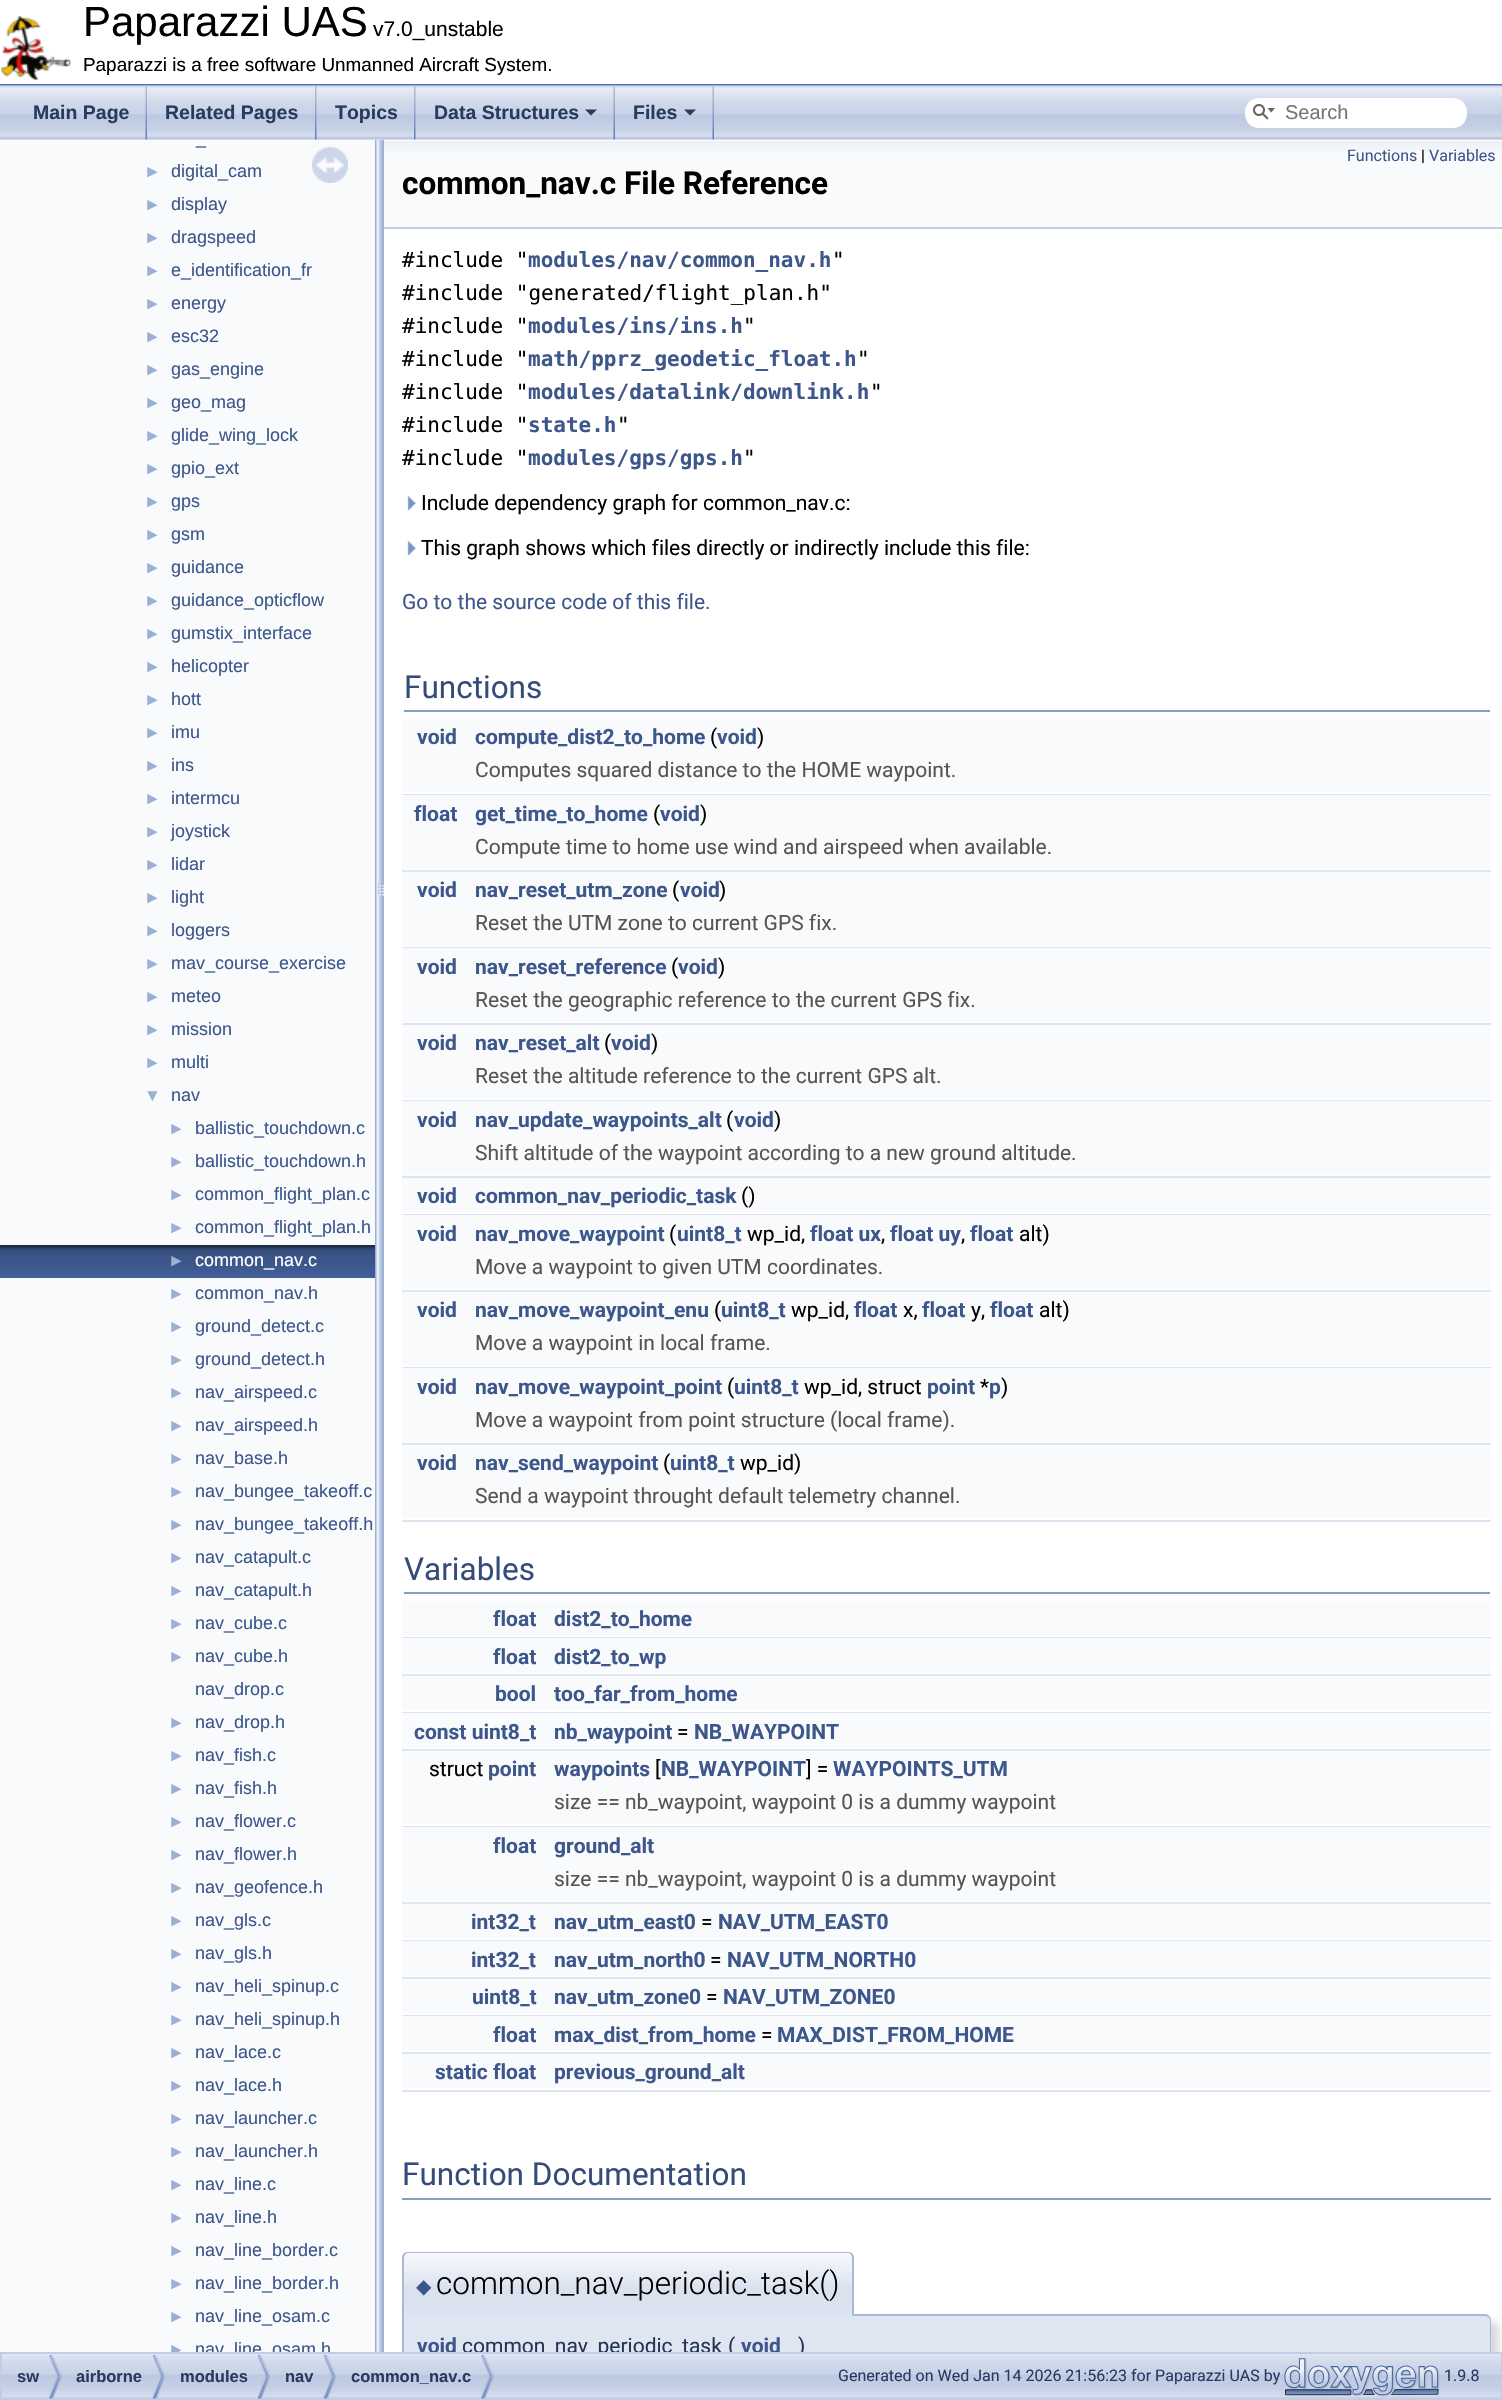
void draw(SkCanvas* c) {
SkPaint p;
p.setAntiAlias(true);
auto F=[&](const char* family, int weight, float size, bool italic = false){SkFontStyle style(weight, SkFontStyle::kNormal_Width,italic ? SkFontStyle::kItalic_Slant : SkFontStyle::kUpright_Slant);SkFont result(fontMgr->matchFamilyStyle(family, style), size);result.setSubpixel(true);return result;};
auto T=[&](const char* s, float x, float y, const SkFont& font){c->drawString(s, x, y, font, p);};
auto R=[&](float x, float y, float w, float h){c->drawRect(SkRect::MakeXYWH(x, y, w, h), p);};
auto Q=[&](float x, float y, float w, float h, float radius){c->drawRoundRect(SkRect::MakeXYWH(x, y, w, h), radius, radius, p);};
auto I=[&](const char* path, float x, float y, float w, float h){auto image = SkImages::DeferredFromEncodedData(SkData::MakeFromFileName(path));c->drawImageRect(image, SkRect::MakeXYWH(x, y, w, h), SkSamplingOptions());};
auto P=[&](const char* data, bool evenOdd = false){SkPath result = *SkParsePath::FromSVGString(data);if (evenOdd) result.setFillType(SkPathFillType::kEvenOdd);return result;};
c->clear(0xffffffff);
p.setColor(0xff5373b4);
R(0,84,1502,2);
I("1.png",1,16,70,64);
auto f1 = F("Liberation Sans",400,42);
p.setColor(0xff000000);
T("Paparazzi UAS",83,36,f1);
auto f2 = F("Liberation Sans",400,21);
T("v7.0_unstable",373,36,f2);
auto f3 = F("Liberation Sans",400,18.9);
T("Paparazzi is a free software Unmanned Aircraft System.",83,71,f3);
I("9.png",375,139,9,2213);
I("2.png",0,85,1502,55);
I("3.png",145,85,2,55);
auto f4 = F("Liberation Sans",700,19.5);
p.setColor(0xff283a5d);
T("Main Page",33,119,f4);
I("4.png",315,85,2,55);
T("Related Pages",165,119,f4);
I("5.png",414,85,2,55);
T("Topics",335,119,f4);
I("3.png",613,85,2,55);
T("Data Structures",434,119,f4);
c->drawPath(P("M585 109.5h12l-6 6z"),p);
I("3.png",712,85,2,55);
T("Files",633,119,f4);
c->drawPath(P("M684 109.5h12l-6 6z"),p);
p.setColor(0xffffffff);
Q(1245,98,222,30,14);
I("6.png",1253,104,22,16);
auto f5 = F("Liberation Sans",400,20);
p.setColor(0xff757575);
T("Search",1285,119,f5);
p.setColor(0xfff9fafc);
R(0,140,375,2212);
auto f6 = F("Liberation Sans",400,18);
p.setColor(0xff3d578c);
T("_",196,144,f6);
auto f7 = F("Liberation Sans",400,17);
p.setColor(0xff9cafd4);
T("►",144,177,f7);
p.setColor(0xff3d578c);
T("digital_cam",171,177,f6);
p.setColor(0xff9cafd4);
T("►",144,210,f7);
p.setColor(0xff3d578c);
T("display",171,210,f6);
p.setColor(0xff9cafd4);
T("►",144,243,f7);
p.setColor(0xff3d578c);
T("dragspeed",171,243,f6);
p.setColor(0xff9cafd4);
T("►",144,276,f7);
p.setColor(0xff3d578c);
T("e_identification_fr",171,276,f6);
p.setColor(0xff9cafd4);
T("►",144,309,f7);
p.setColor(0xff3d578c);
T("energy",171,309,f6);
p.setColor(0xff9cafd4);
T("►",144,342,f7);
p.setColor(0xff3d578c);
T("esc32",171,342,f6);
p.setColor(0xff9cafd4);
T("►",144,375,f7);
p.setColor(0xff3d578c);
T("gas_engine",171,375,f6);
p.setColor(0xff9cafd4);
T("►",144,408,f7);
p.setColor(0xff3d578c);
T("geo_mag",171,408,f6);
p.setColor(0xff9cafd4);
T("►",144,441,f7);
p.setColor(0xff3d578c);
T("glide_wing_lock",171,441,f6);
p.setColor(0xff9cafd4);
T("►",144,474,f7);
p.setColor(0xff3d578c);
T("gpio_ext",171,474,f6);
p.setColor(0xff9cafd4);
T("►",144,507,f7);
p.setColor(0xff3d578c);
T("gps",171,507,f6);
p.setColor(0xff9cafd4);
T("►",144,540,f7);
p.setColor(0xff3d578c);
T("gsm",171,540,f6);
p.setColor(0xff9cafd4);
T("►",144,573,f7);
p.setColor(0xff3d578c);
T("guidance",171,573,f6);
p.setColor(0xff9cafd4);
T("►",144,606,f7);
p.setColor(0xff3d578c);
T("guidance_opticflow",171,606,f6);
p.setColor(0xff9cafd4);
T("►",144,639,f7);
p.setColor(0xff3d578c);
T("gumstix_interface",171,639,f6);
p.setColor(0xff9cafd4);
T("►",144,672,f7);
p.setColor(0xff3d578c);
T("helicopter",171,672,f6);
p.setColor(0xff9cafd4);
T("►",144,705,f7);
p.setColor(0xff3d578c);
T("hott",171,705,f6);
p.setColor(0xff9cafd4);
T("►",144,738,f7);
p.setColor(0xff3d578c);
T("imu",171,738,f6);
p.setColor(0xff9cafd4);
T("►",144,771,f7);
p.setColor(0xff3d578c);
T("ins",171,771,f6);
p.setColor(0xff9cafd4);
T("►",144,804,f7);
p.setColor(0xff3d578c);
T("intermcu",171,804,f6);
p.setColor(0xff9cafd4);
T("►",144,837,f7);
p.setColor(0xff3d578c);
T("joystick",171,837,f6);
p.setColor(0xff9cafd4);
T("►",144,870,f7);
p.setColor(0xff3d578c);
T("lidar",171,870,f6);
p.setColor(0xff9cafd4);
T("►",144,903,f7);
p.setColor(0xff3d578c);
T("light",171,903,f6);
p.setColor(0xff9cafd4);
T("►",144,936,f7);
p.setColor(0xff3d578c);
T("loggers",171,936,f6);
p.setColor(0xff9cafd4);
T("►",144,969,f7);
p.setColor(0xff3d578c);
T("mav_course_exercise",171,969,f6);
p.setColor(0xff9cafd4);
T("►",144,1002,f7);
p.setColor(0xff3d578c);
T("meteo",171,1002,f6);
p.setColor(0xff9cafd4);
T("►",144,1035,f7);
p.setColor(0xff3d578c);
T("mission",171,1035,f6);
p.setColor(0xff9cafd4);
T("►",144,1068,f7);
p.setColor(0xff3d578c);
T("multi",171,1068,f6);
p.setColor(0xff9cafd4);
T("▼",144,1101,f7);
p.setColor(0xff3d578c);
T("nav",171,1101,f6);
p.setColor(0xff9cafd4);
T("►",168,1134,f7);
p.setColor(0xff3d578c);
T("ballistic_touchdown.c",195,1134,f6);
p.setColor(0xff9cafd4);
T("►",168,1167,f7);
p.setColor(0xff3d578c);
T("ballistic_touchdown.h",195,1167,f6);
p.setColor(0xff9cafd4);
T("►",168,1200,f7);
p.setColor(0xff3d578c);
T("common_flight_plan.c",195,1200,f6);
p.setColor(0xff9cafd4);
T("►",168,1233,f7);
p.setColor(0xff3d578c);
T("common_flight_plan.h",195,1233,f6);
I("7.png",0,1245,375,33);
p.setColor(0xff9cafd4);
T("►",168,1266,f7);
p.setColor(0xffffffff);
T("common_nav.c",195,1266,f6);
p.setColor(0xff9cafd4);
T("►",168,1299,f7);
p.setColor(0xff3d578c);
T("common_nav.h",195,1299,f6);
p.setColor(0xff9cafd4);
T("►",168,1332,f7);
p.setColor(0xff3d578c);
T("ground_detect.c",195,1332,f6);
p.setColor(0xff9cafd4);
T("►",168,1365,f7);
p.setColor(0xff3d578c);
T("ground_detect.h",195,1365,f6);
p.setColor(0xff9cafd4);
T("►",168,1398,f7);
p.setColor(0xff3d578c);
T("nav_airspeed.c",195,1398,f6);
p.setColor(0xff9cafd4);
T("►",168,1431,f7);
p.setColor(0xff3d578c);
T("nav_airspeed.h",195,1431,f6);
p.setColor(0xff9cafd4);
T("►",168,1464,f7);
p.setColor(0xff3d578c);
T("nav_base.h",195,1464,f6);
p.setColor(0xff9cafd4);
T("►",168,1497,f7);
p.setColor(0xff3d578c);
T("nav_bungee_takeoff.c",195,1497,f6);
p.setColor(0xff9cafd4);
T("►",168,1530,f7);
p.setColor(0xff3d578c);
T("nav_bungee_takeoff.h",195,1530,f6);
p.setColor(0xff9cafd4);
T("►",168,1563,f7);
p.setColor(0xff3d578c);
T("nav_catapult.c",195,1563,f6);
p.setColor(0xff9cafd4);
T("►",168,1596,f7);
p.setColor(0xff3d578c);
T("nav_catapult.h",195,1596,f6);
p.setColor(0xff9cafd4);
T("►",168,1629,f7);
p.setColor(0xff3d578c);
T("nav_cube.c",195,1629,f6);
p.setColor(0xff9cafd4);
T("►",168,1662,f7);
p.setColor(0xff3d578c);
T("nav_cube.h",195,1662,f6);
T("nav_drop.c",195,1695,f6);
p.setColor(0xff9cafd4);
T("►",168,1728,f7);
p.setColor(0xff3d578c);
T("nav_drop.h",195,1728,f6);
p.setColor(0xff9cafd4);
T("►",168,1761,f7);
p.setColor(0xff3d578c);
T("nav_fish.c",195,1761,f6);
p.setColor(0xff9cafd4);
T("►",168,1794,f7);
p.setColor(0xff3d578c);
T("nav_fish.h",195,1794,f6);
p.setColor(0xff9cafd4);
T("►",168,1827,f7);
p.setColor(0xff3d578c);
T("nav_flower.c",195,1827,f6);
p.setColor(0xff9cafd4);
T("►",168,1860,f7);
p.setColor(0xff3d578c);
T("nav_flower.h",195,1860,f6);
p.setColor(0xff9cafd4);
T("►",168,1893,f7);
p.setColor(0xff3d578c);
T("nav_geofence.h",195,1893,f6);
p.setColor(0xff9cafd4);
T("►",168,1926,f7);
p.setColor(0xff3d578c);
T("nav_gls.c",195,1926,f6);
p.setColor(0xff9cafd4);
T("►",168,1959,f7);
p.setColor(0xff3d578c);
T("nav_gls.h",195,1959,f6);
p.setColor(0xff9cafd4);
T("►",168,1992,f7);
p.setColor(0xff3d578c);
T("nav_heli_spinup.c",195,1992,f6);
p.setColor(0xff9cafd4);
T("►",168,2025,f7);
p.setColor(0xff3d578c);
T("nav_heli_spinup.h",195,2025,f6);
p.setColor(0xff9cafd4);
T("►",168,2058,f7);
p.setColor(0xff3d578c);
T("nav_lace.c",195,2058,f6);
p.setColor(0xff9cafd4);
T("►",168,2091,f7);
p.setColor(0xff3d578c);
T("nav_lace.h",195,2091,f6);
p.setColor(0xff9cafd4);
T("►",168,2124,f7);
p.setColor(0xff3d578c);
T("nav_launcher.c",195,2124,f6);
p.setColor(0xff9cafd4);
T("►",168,2157,f7);
p.setColor(0xff3d578c);
T("nav_launcher.h",195,2157,f6);
p.setColor(0xff9cafd4);
T("►",168,2190,f7);
p.setColor(0xff3d578c);
T("nav_line.c",195,2190,f6);
p.setColor(0xff9cafd4);
T("►",168,2223,f7);
p.setColor(0xff3d578c);
T("nav_line.h",195,2223,f6);
p.setColor(0xff9cafd4);
T("►",168,2256,f7);
p.setColor(0xff3d578c);
T("nav_line_border.c",195,2256,f6);
p.setColor(0xff9cafd4);
T("►",168,2289,f7);
p.setColor(0xff3d578c);
T("nav_line_border.h",195,2289,f6);
p.setColor(0xff9cafd4);
T("►",168,2322,f7);
p.setColor(0xff3d578c);
T("nav_line_osam.c",195,2322,f6);
c->save();
c->clipRect(SkRect::MakeXYWH(0,140,375,2212));
p.setColor(0xff9cafd4);
T("►",168,2355,f7);
p.setColor(0xff3d578c);
T("nav_line_osam.h",195,2355,f6);
c->restore();
I("8.png",312,147,36,36);
p.setColor(0xfff9fafc);
R(384,140,1118,87);
I("10.png",384,141,1118,10);
p.setColor(0xffc4cfe5);
R(384,227,1118,2);
auto f8 = F("Roboto",400,16);
p.setColor(0xff3d578c);
T("Functions",1347,161,f8);
p.setColor(0xff000000);
T("|",1421,161,f8);
p.setColor(0xff3d578c);
T("Variables",1429,161,f8);
auto f9 = F("Roboto",700,31.5);
p.setColor(0xff000000);
T("common_nav.c File Reference",402,194,f9);
auto f10 = F("DejaVu Sans Mono",400,21);
T("#include \"",402,267,f10);
auto f11 = F("DejaVu Sans Mono",700,21);
p.setColor(0xff3d578c);
T("modules/nav/common_nav.h",528,267,f11);
p.setColor(0xff000000);
T("\"",832,267,f10);
T("#include \"generated/flight_plan.h\"",402,300,f10);
T("#include \"",402,333,f10);
p.setColor(0xff3d578c);
T("modules/ins/ins.h",528,333,f11);
p.setColor(0xff000000);
T("\"",743,333,f10);
T("#include \"",402,366,f10);
p.setColor(0xff3d578c);
T("math/pprz_geodetic_float.h",528,366,f11);
p.setColor(0xff000000);
T("\"",857,366,f10);
T("#include \"",402,399,f10);
p.setColor(0xff3d578c);
T("modules/datalink/downlink.h",528,399,f11);
p.setColor(0xff000000);
T("\"",870,399,f10);
T("#include \"",402,432,f10);
p.setColor(0xff3d578c);
T("state.h",528,432,f11);
p.setColor(0xff000000);
T("\"",617,432,f10);
T("#include \"",402,465,f10);
p.setColor(0xff3d578c);
T("modules/gps/gps.h",528,465,f11);
p.setColor(0xff000000);
T("\"",743,465,f10);
I("11.png",407,496,9,14);
auto f12 = F("Roboto",400,21);
T("Include dependency graph for common_nav.c:",421,510,f12);
I("11.png",407,541,9,14);
T("This graph shows which files directly or indirectly include this file:",421,555,f12);
p.setColor(0xff3d578c);
T("Go to the source code of this file.",402,609,f12);
p.setColor(0xff879ecb);
R(404,710,1086,2);
auto f13 = F("Roboto",400,31.5);
p.setColor(0xff354c7b);
T("Functions",404,698,f13);
p.setColor(0xfff9fafc);
R(402,719,1089,34);
auto f14 = F("Roboto",700,21);
p.setColor(0xff3d578c);
T("void",417,744,f14);
T("compute_dist2_to_home",475,744,f14);
p.setColor(0xff000000);
T("(",710,744,f12);
p.setColor(0xff3d578c);
T("void",717,744,f14);
p.setColor(0xff000000);
T(")",757,744,f12);
p.setColor(0xfff9fafc);
R(402,753,1089,39);
p.setColor(0xff555555);
T("Computes squared distance to the HOME waypoint.",475,777,f12);
p.setColor(0xffdee4f0);
R(402,794,1089,1);
p.setColor(0xfff9fafc);
R(402,795,1089,35);
p.setColor(0xff3d578c);
T("float",414,821,f14);
T("get_time_to_home",475,821,f14);
p.setColor(0xff000000);
T("(",653,821,f12);
p.setColor(0xff3d578c);
T("void",660,821,f14);
p.setColor(0xff000000);
T(")",700,821,f12);
p.setColor(0xfff9fafc);
R(402,830,1089,39);
p.setColor(0xff555555);
T("Compute time to home use wind and airspeed when available.",475,854,f12);
p.setColor(0xffdee4f0);
R(402,870,1089,2);
p.setColor(0xfff9fafc);
R(402,872,1089,34);
p.setColor(0xff3d578c);
T("void",417,897,f14);
T("nav_reset_utm_zone",475,897,f14);
p.setColor(0xff000000);
T("(",672,897,f12);
p.setColor(0xff3d578c);
T("void",680,897,f14);
p.setColor(0xff000000);
T(")",719,897,f12);
p.setColor(0xfff9fafc);
R(402,906,1089,39);
p.setColor(0xff555555);
T("Reset the UTM zone to current GPS fix.",475,930,f12);
p.setColor(0xffdee4f0);
R(402,947,1089,1);
p.setColor(0xfff9fafc);
R(402,948,1089,35);
p.setColor(0xff3d578c);
T("void",417,974,f14);
T("nav_reset_reference",475,974,f14);
p.setColor(0xff000000);
T("(",671,974,f12);
p.setColor(0xff3d578c);
T("void",678,974,f14);
p.setColor(0xff000000);
T(")",718,974,f12);
p.setColor(0xfff9fafc);
R(402,983,1089,39);
p.setColor(0xff555555);
T("Reset the geographic reference to the current GPS fix.",475,1007,f12);
p.setColor(0xffdee4f0);
R(402,1023,1089,2);
p.setColor(0xfff9fafc);
R(402,1025,1089,34);
p.setColor(0xff3d578c);
T("void",417,1050,f14);
T("nav_reset_alt",475,1050,f14);
p.setColor(0xff000000);
T("(",604,1050,f12);
p.setColor(0xff3d578c);
T("void",611,1050,f14);
p.setColor(0xff000000);
T(")",651,1050,f12);
p.setColor(0xfff9fafc);
R(402,1059,1089,39);
p.setColor(0xff555555);
T("Reset the altitude reference to the current GPS alt.",475,1083,f12);
p.setColor(0xffdee4f0);
R(402,1100,1089,1);
p.setColor(0xfff9fafc);
R(402,1101,1089,35);
p.setColor(0xff3d578c);
T("void",417,1127,f14);
T("nav_update_waypoints_alt",475,1127,f14);
p.setColor(0xff000000);
T("(",726,1127,f12);
p.setColor(0xff3d578c);
T("void",734,1127,f14);
p.setColor(0xff000000);
T(")",774,1127,f12);
p.setColor(0xfff9fafc);
R(402,1136,1089,39);
p.setColor(0xff555555);
T("Shift altitude of the waypoint according to a new ground altitude.",475,1160,f12);
p.setColor(0xffdee4f0);
R(402,1176,1089,2);
p.setColor(0xfff9fafc);
R(402,1178,1089,34);
p.setColor(0xff3d578c);
T("void",417,1203,f14);
T("common_nav_periodic_task",475,1203,f14);
p.setColor(0xff000000);
T("()",741,1203,f12);
p.setColor(0xffdee4f0);
R(402,1214,1089,1);
p.setColor(0xfff9fafc);
R(402,1215,1089,35);
p.setColor(0xff3d578c);
T("void",417,1241,f14);
T("nav_move_waypoint",475,1241,f14);
p.setColor(0xff000000);
T("(",669,1241,f12);
p.setColor(0xff3d578c);
T("uint8_t",677,1241,f14);
p.setColor(0xff000000);
T("wp_id,",747,1241,f12);
p.setColor(0xff3d578c);
T("float ux",810,1241,f14);
p.setColor(0xff000000);
T(",",881,1241,f12);
p.setColor(0xff3d578c);
T("float uy",890,1241,f14);
p.setColor(0xff000000);
T(",",961,1241,f12);
p.setColor(0xff3d578c);
T("float",970,1241,f14);
p.setColor(0xff000000);
T("alt)",1019,1241,f12);
p.setColor(0xfff9fafc);
R(402,1250,1089,39);
p.setColor(0xff555555);
T("Move a waypoint to given UTM coordinates.",475,1274,f12);
p.setColor(0xffdee4f0);
R(402,1290,1089,2);
p.setColor(0xfff9fafc);
R(402,1292,1089,34);
p.setColor(0xff3d578c);
T("void",417,1317,f14);
T("nav_move_waypoint_enu",475,1317,f14);
p.setColor(0xff000000);
T("(",714,1317,f12);
p.setColor(0xff3d578c);
T("uint8_t",721,1317,f14);
p.setColor(0xff000000);
T("wp_id,",791,1317,f12);
p.setColor(0xff3d578c);
T("float",854,1317,f14);
p.setColor(0xff000000);
T("x,",903,1317,f12);
p.setColor(0xff3d578c);
T("float",922,1317,f14);
p.setColor(0xff000000);
T("y,",971,1317,f12);
p.setColor(0xff3d578c);
T("float",990,1317,f14);
p.setColor(0xff000000);
T("alt)",1039,1317,f12);
p.setColor(0xfff9fafc);
R(402,1326,1089,39);
p.setColor(0xff555555);
T("Move a waypoint in local frame.",475,1350,f12);
p.setColor(0xffdee4f0);
R(402,1367,1089,1);
p.setColor(0xfff9fafc);
R(402,1368,1089,35);
p.setColor(0xff3d578c);
T("void",417,1394,f14);
T("nav_move_waypoint_point",475,1394,f14);
p.setColor(0xff000000);
T("(",727,1394,f12);
p.setColor(0xff3d578c);
T("uint8_t",734,1394,f14);
p.setColor(0xff000000);
T("wp_id, struct",804,1394,f12);
p.setColor(0xff3d578c);
T("point",927,1394,f14);
p.setColor(0xff000000);
T("*",980,1394,f12);
p.setColor(0xff3d578c);
T("p",989,1394,f14);
p.setColor(0xff000000);
T(")",1001,1394,f12);
p.setColor(0xfff9fafc);
R(402,1403,1089,39);
p.setColor(0xff555555);
T("Move a waypoint from point structure (local frame).",475,1427,f12);
p.setColor(0xffdee4f0);
R(402,1443,1089,2);
p.setColor(0xfff9fafc);
R(402,1445,1089,34);
p.setColor(0xff3d578c);
T("void",417,1470,f14);
T("nav_send_waypoint",475,1470,f14);
p.setColor(0xff000000);
T("(",663,1470,f12);
p.setColor(0xff3d578c);
T("uint8_t",670,1470,f14);
p.setColor(0xff000000);
T("wp_id)",740,1470,f12);
p.setColor(0xfff9fafc);
R(402,1479,1089,39);
p.setColor(0xff555555);
T("Send a waypoint throught default telemetry channel.",475,1503,f12);
p.setColor(0xffdee4f0);
R(402,1520,1089,2);
p.setColor(0xff879ecb);
R(404,1592,1086,2);
p.setColor(0xff354c7b);
T("Variables",404,1580,f13);
p.setColor(0xfff9fafc);
R(402,1601,1089,34);
p.setColor(0xff3d578c);
T("float",493,1626,f14);
T("dist2_to_home",554,1626,f14);
p.setColor(0xffdee4f0);
R(402,1637,1089,1);
p.setColor(0xfff9fafc);
R(402,1638,1089,35);
p.setColor(0xff3d578c);
T("float",493,1664,f14);
T("dist2_to_wp",554,1664,f14);
p.setColor(0xffdee4f0);
R(402,1674,1089,2);
p.setColor(0xfff9fafc);
R(402,1676,1089,34);
p.setColor(0xff3d578c);
T("bool",495,1701,f14);
T("too_far_from_home",554,1701,f14);
p.setColor(0xffdee4f0);
R(402,1712,1089,1);
p.setColor(0xfff9fafc);
R(402,1713,1089,35);
p.setColor(0xff3d578c);
T("const uint8_t",414,1739,f14);
T("nb_waypoint",554,1739,f14);
p.setColor(0xff000000);
T("=",677,1739,f12);
p.setColor(0xff3d578c);
T("NB_WAYPOINT",694,1739,f14);
p.setColor(0xffdee4f0);
R(402,1749,1089,2);
p.setColor(0xfff9fafc);
R(402,1751,1089,34);
p.setColor(0xff000000);
T("struct",429,1776,f12);
p.setColor(0xff3d578c);
T("point",488,1776,f14);
T("waypoints",554,1776,f14);
p.setColor(0xff000000);
T("[",655,1776,f12);
p.setColor(0xff3d578c);
T("NB_WAYPOINT",661,1776,f14);
p.setColor(0xff000000);
T("] =",806,1776,f12);
p.setColor(0xff3d578c);
T("WAYPOINTS_UTM",833,1776,f14);
p.setColor(0xfff9fafc);
R(402,1785,1089,39);
p.setColor(0xff555555);
T("size == nb_waypoint, waypoint 0 is a dummy waypoint",554,1809,f12);
p.setColor(0xffdee4f0);
R(402,1826,1089,1);
p.setColor(0xfff9fafc);
R(402,1827,1089,35);
p.setColor(0xff3d578c);
T("float",493,1853,f14);
T("ground_alt",554,1853,f14);
p.setColor(0xfff9fafc);
R(402,1862,1089,39);
p.setColor(0xff555555);
T("size == nb_waypoint, waypoint 0 is a dummy waypoint",554,1886,f12);
p.setColor(0xffdee4f0);
R(402,1902,1089,2);
p.setColor(0xfff9fafc);
R(402,1904,1089,34);
p.setColor(0xff3d578c);
T("int32_t",471,1929,f14);
T("nav_utm_east0",554,1929,f14);
p.setColor(0xff000000);
T("=",701,1929,f12);
p.setColor(0xff3d578c);
T("NAV_UTM_EAST0",718,1929,f14);
p.setColor(0xffdee4f0);
R(402,1940,1089,1);
p.setColor(0xfff9fafc);
R(402,1941,1089,35);
p.setColor(0xff3d578c);
T("int32_t",471,1967,f14);
T("nav_utm_north0",554,1967,f14);
p.setColor(0xff000000);
T("=",710,1967,f12);
p.setColor(0xff3d578c);
T("NAV_UTM_NORTH0",727,1967,f14);
p.setColor(0xffdee4f0);
R(402,1977,1089,2);
p.setColor(0xfff9fafc);
R(402,1979,1089,34);
p.setColor(0xff3d578c);
T("uint8_t",472,2004,f14);
T("nav_utm_zone0",554,2004,f14);
p.setColor(0xff000000);
T("=",706,2004,f12);
p.setColor(0xff3d578c);
T("NAV_UTM_ZONE0",723,2004,f14);
p.setColor(0xffdee4f0);
R(402,2015,1089,1);
p.setColor(0xfff9fafc);
R(402,2016,1089,35);
p.setColor(0xff3d578c);
T("float",493,2042,f14);
T("max_dist_from_home",554,2042,f14);
p.setColor(0xff000000);
T("=",761,2042,f12);
p.setColor(0xff3d578c);
T("MAX_DIST_FROM_HOME",777,2042,f14);
p.setColor(0xffdee4f0);
R(402,2052,1089,2);
p.setColor(0xfff9fafc);
R(402,2054,1089,34);
p.setColor(0xff3d578c);
T("static float",435,2079,f14);
T("previous_ground_alt",554,2079,f14);
p.setColor(0xffdee4f0);
R(402,2090,1089,2);
p.setColor(0xff879ecb);
R(402,2198,1089,2);
p.setColor(0xff354c7b);
T("Function Documentation",402,2185,f13);
p.setColor(0x26000000);
p.setMaskFilter(SkMaskFilter::MakeBlur(kNormal_SkBlurStyle, 4));
c->drawRoundRect(SkRect::MakeXYWH(410,2322,1089,62),6,6,p);
p.setMaskFilter(nullptr);
p.setColor(0xffdfe5f1);
c->drawPath(P("M402 2315h1083c3.5 0 6 2.5 6 6v31h-1089z"),p);
p.setColor(0xffa8b8d9);
c->drawPath(P("M402 2314h1083c3 0 6 3 6 6v56h-1089zm2 2h1081c2 0 5 2 5 4v56h-1086z",true),p);
p.setColor(0xffe2e8f2);
c->drawPath(P("M408 2252h440c3.5 0 6 2.5 6 6v58h-452v-58c0-3.5 2.5-6 6-6z"),p);
I("12.png",402,2253,452,62);
p.setColor(0xffa8b8d9);
c->drawPath(P("M408 2252h440c3 0 6 2 6 6v58h-452v-58c0-4 3-6 6-6zm0 1h440c2 0 4 2 4 5v58h-448v-58c0-3 2-5 4-5z",true),p);
auto f15 = F("DejaVu Sans",400,20);
p.setColor(0xff3d578c);
T("◆",416,2293,f15);
auto f16 = F("Roboto",300,31.5);
p.setColor(0xff000000);
T("common_nav_periodic_task()",436,2294,f16);
p.setColor(0xff3d578c);
T("void",417,2353,f14);
p.setColor(0xff253555);
T("common_nav_periodic_task",462,2353,f12);
T("(",728,2353,f12);
p.setColor(0xff3d578c);
T("void",741,2353,f14);
p.setColor(0xff253555);
T(")",798,2353,f12);
I("13.png",2,2354,1499,44);
p.setStroke(true);
p.setStrokeWidth(2);
p.setColor(0xffc2cde4);
c->drawRect(SkRect::MakeXYWH(1,2353,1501,46),p);
I("14.png",49,2355,13,44);
auto f17 = F("Liberation Sans",700,16.5);
p.setStroke(false);
p.setColor(0xff283a5d);
T("sw",17,2382,f17);
I("15.png",153,2355,12,44);
T("airborne",76,2382,f17);
I("16.png",258,2355,12,44);
T("modules",180,2382,f17);
I("17.png",324,2355,12,44);
T("nav",285,2382,f17);
I("14.png",481,2355,13,44);
T("common_nav.c",351,2382,f17);
T("Generated on Wed Jan 14 2026 21:56:23 for Paparazzi UAS by",838,2381,f8);
I("18.png",1284,2358,156,39);
T("1.9.8",1444,2381,f8);
}
